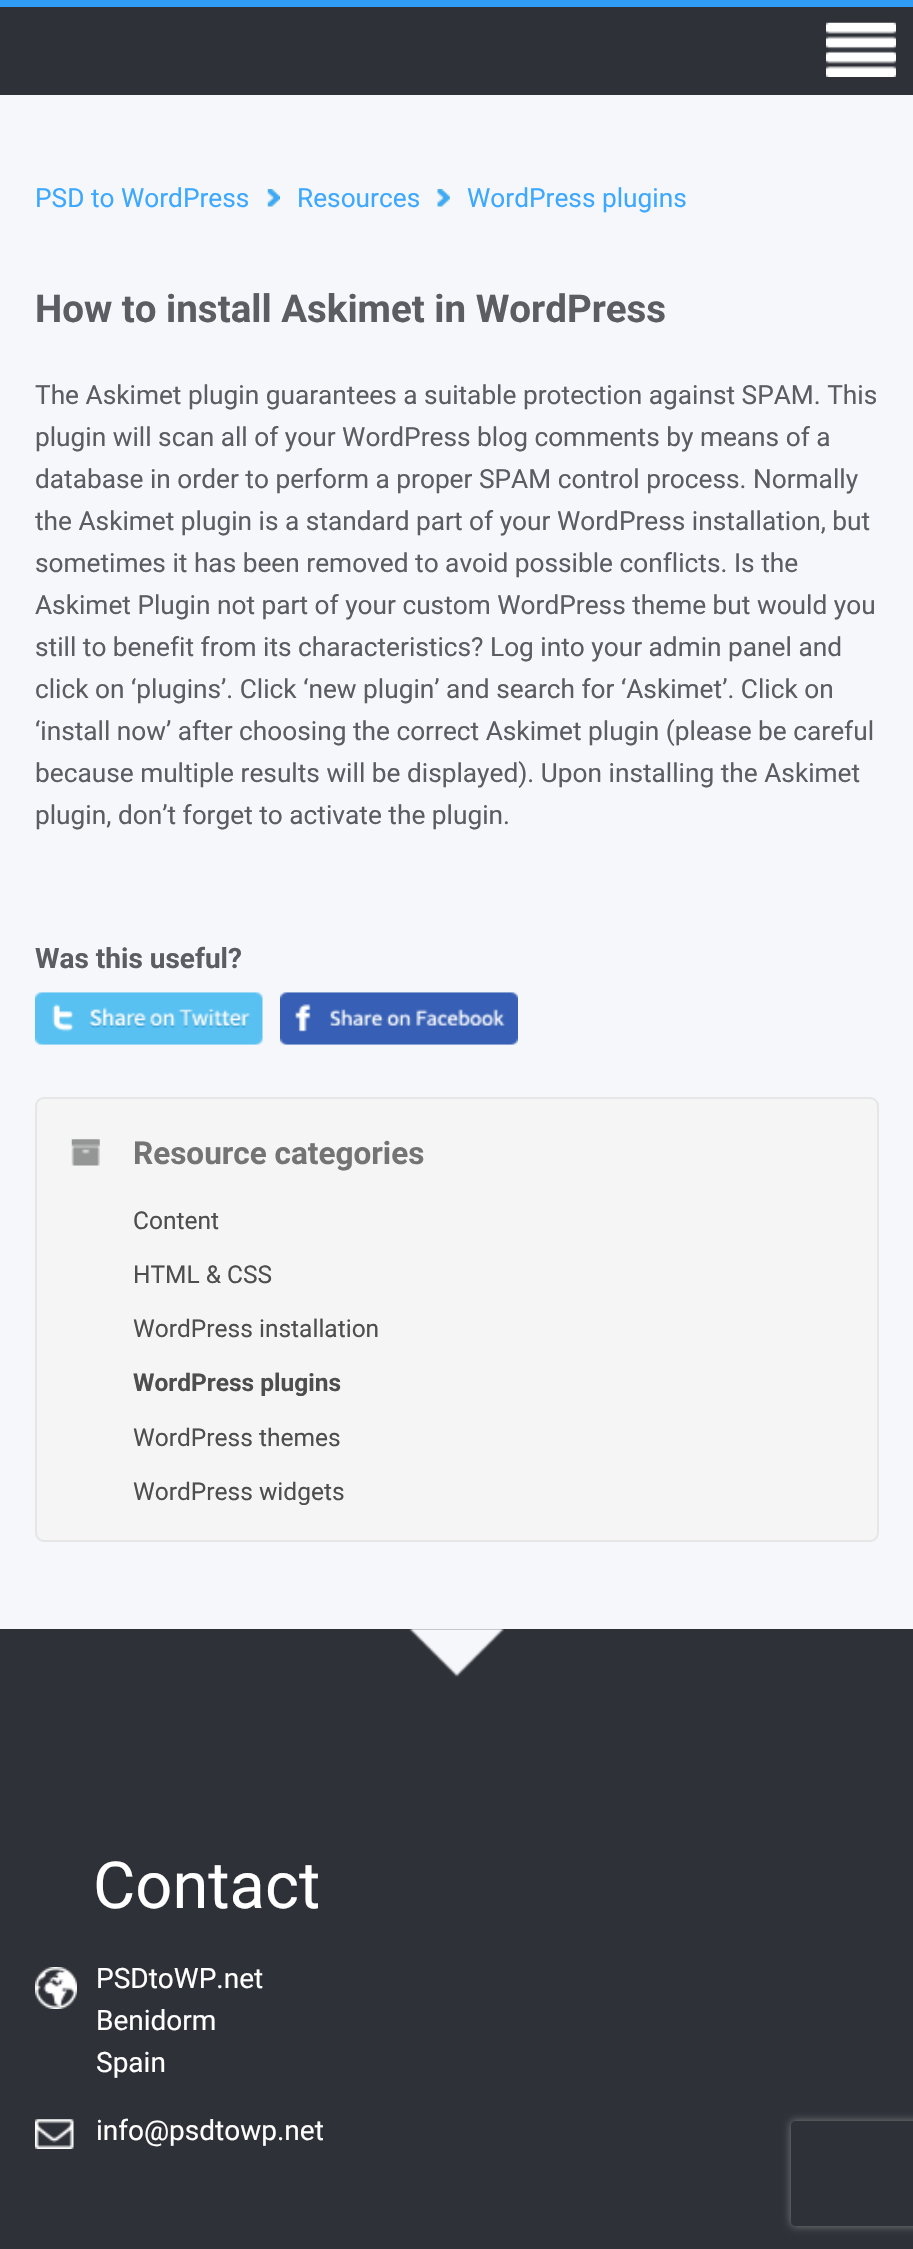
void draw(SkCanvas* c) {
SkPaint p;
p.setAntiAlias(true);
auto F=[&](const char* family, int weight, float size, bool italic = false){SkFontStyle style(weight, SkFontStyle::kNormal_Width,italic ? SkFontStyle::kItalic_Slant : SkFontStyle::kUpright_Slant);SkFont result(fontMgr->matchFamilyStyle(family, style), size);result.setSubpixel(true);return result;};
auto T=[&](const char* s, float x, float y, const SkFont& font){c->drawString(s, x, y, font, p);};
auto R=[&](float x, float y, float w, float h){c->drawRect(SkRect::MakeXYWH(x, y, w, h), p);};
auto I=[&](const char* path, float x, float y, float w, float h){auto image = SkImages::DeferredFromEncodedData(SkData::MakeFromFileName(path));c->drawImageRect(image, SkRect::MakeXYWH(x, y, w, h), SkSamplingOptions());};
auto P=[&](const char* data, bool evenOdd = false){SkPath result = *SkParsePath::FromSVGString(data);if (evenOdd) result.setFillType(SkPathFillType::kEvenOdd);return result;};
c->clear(0xfff6f7fb);
p.setColor(0xff2e3138);
R(0,7,913,88);
p.setColor(0xff2f9df6);
R(0,0,913,7);
I("1.png",826,22,70,55);
auto f1 = F("Roboto",400,26.25);
p.setColor(0xff3ca8ff);
T("PSD to WordPress",35,207,f1);
I("2.png",267,189,13,18);
T("Resources",297,207,f1);
I("3.png",437,189,13,18);
T("WordPress plugins",467,207,f1);
auto f2 = F("Roboto",700,38.5);
p.setColor(0xff5b5d62);
T("How to install Askimet in WordPress",35,322,f2);
T("The Askimet plugin guarantees a suitable protection against SPAM. This",35,404,f1);
T("plugin will scan all of your WordPress blog comments by means of a",35,446,f1);
T("database in order to perform a proper SPAM control process. Normally",35,488,f1);
T("the Askimet plugin is a standard part of your WordPress installation, but",35,530,f1);
T("sometimes it has been removed to avoid possible conflicts. Is the",35,572,f1);
T("Askimet Plugin not part of your custom WordPress theme but would you",35,614,f1);
T("still to benefit from its characteristics? Log into your admin panel and",35,656,f1);
T("click on ‘plugins’. Click ‘new plugin’ and search for ‘Askimet’. Click on",35,698,f1);
T("‘install now’ after choosing the correct Askimet plugin (please be careful",35,740,f1);
T("because multiple results will be displayed). Upon installing the Askimet",35,782,f1);
T("plugin, don’t forget to activate the plugin.",35,824,f1);
auto f3 = F("Roboto",700,28);
T("Was this useful?",35,968,f3);
I("4.png",35,992,228,53);
I("5.png",280,992,238,53);
p.setColor(0xfff5f5f5);
c->drawRoundRect(SkRect::MakeXYWH(36,1098,842,443),8,8,p);
p.setStroke(true);
p.setStrokeWidth(2);
p.setColor(0xffe6e6e6);
c->drawRoundRect(SkRect::MakeXYWH(36,1098,842,443),8,8,p);
I("6.png",71,1139,29,27);
auto f4 = F("Roboto",700,31.5);
p.setStroke(false);
p.setColor(0xff747474);
T("Resource categories",133,1164,f4);
auto f5 = F("Roboto",400,24.5);
p.setColor(0xff4e4e4e);
T("Content",133,1229,f5);
T("HTML & CSS",133,1283,f5);
T("WordPress installation",133,1337,f5);
auto f6 = F("Roboto",700,24.5);
T("WordPress plugins",133,1391,f6);
T("WordPress themes",133,1446,f5);
T("WordPress widgets",133,1500,f5);
p.setColor(0xff2e3138);
R(0,1629,913,620);
I("7.png",409,1629,95,48);
auto f7 = F("Roboto",400,65);
p.setColor(0xffffffff);
T("Contact",93,1908,f7);
I("8.png",35,1967,42,42);
auto f8 = F("Roboto",400,28);
T("PSDtoWP.net",96,1988,f8);
T("Benidorm",96,2030,f8);
T("Spain",96,2072,f8);
I("9.png",35,2119,39,30);
T("info@psdtowp.net",96,2140,f8);
c->save();
c->clipPath(P("M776 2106h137v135h-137zm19 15h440c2 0 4 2 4 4v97c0 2-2 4-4 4h-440c-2 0-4-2-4-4v-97c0-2 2-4 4-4z",true),true);
p.setColor(0xff808080);
p.setMaskFilter(SkMaskFilter::MakeBlur(kNormal_SkBlurStyle, 4.5));
c->drawRoundRect(SkRect::MakeXYWH(791,2121,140,105),4,4,p);
p.setMaskFilter(nullptr);
c->restore();
}
